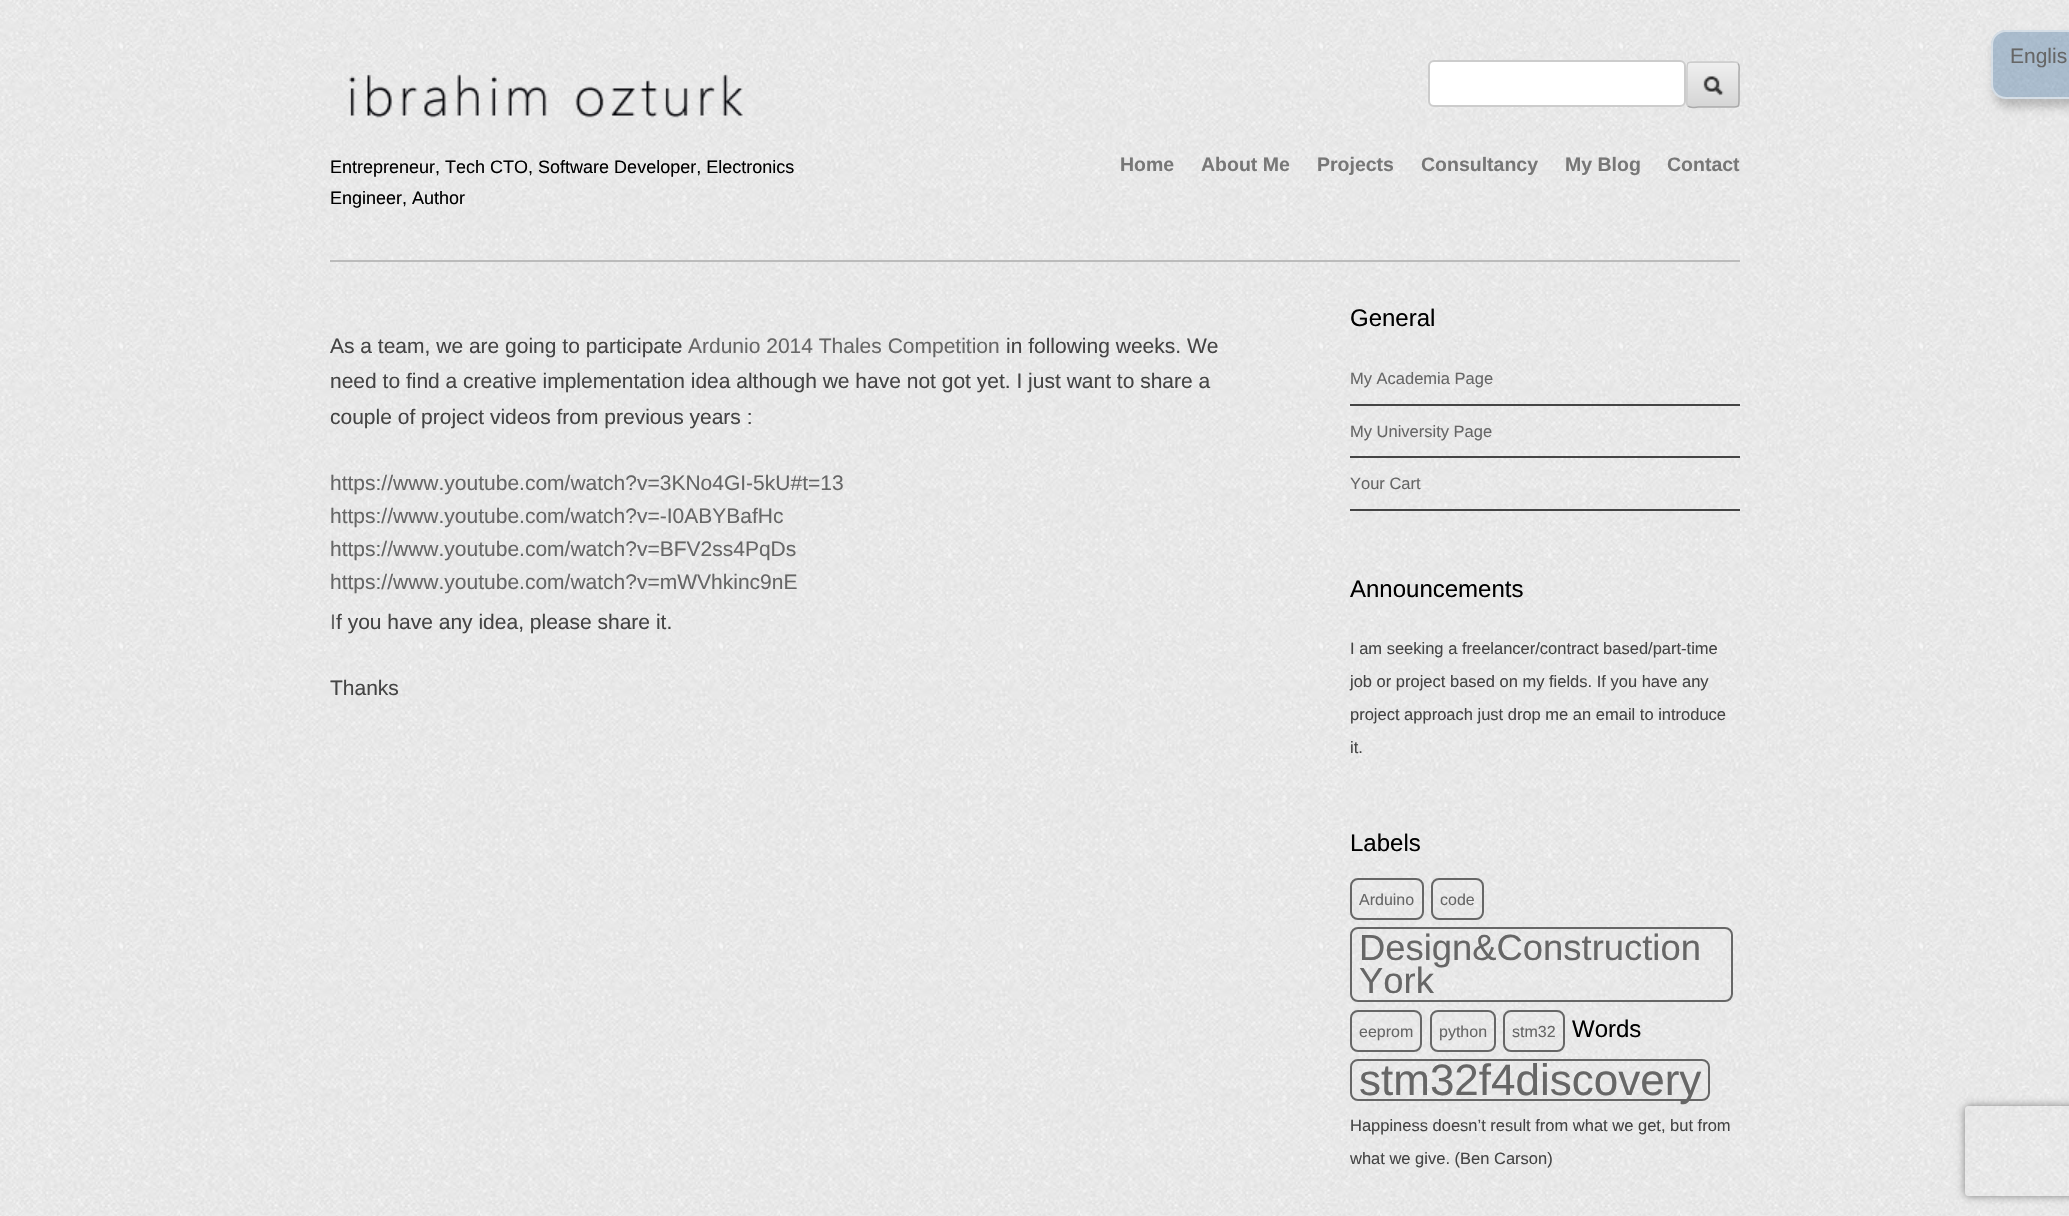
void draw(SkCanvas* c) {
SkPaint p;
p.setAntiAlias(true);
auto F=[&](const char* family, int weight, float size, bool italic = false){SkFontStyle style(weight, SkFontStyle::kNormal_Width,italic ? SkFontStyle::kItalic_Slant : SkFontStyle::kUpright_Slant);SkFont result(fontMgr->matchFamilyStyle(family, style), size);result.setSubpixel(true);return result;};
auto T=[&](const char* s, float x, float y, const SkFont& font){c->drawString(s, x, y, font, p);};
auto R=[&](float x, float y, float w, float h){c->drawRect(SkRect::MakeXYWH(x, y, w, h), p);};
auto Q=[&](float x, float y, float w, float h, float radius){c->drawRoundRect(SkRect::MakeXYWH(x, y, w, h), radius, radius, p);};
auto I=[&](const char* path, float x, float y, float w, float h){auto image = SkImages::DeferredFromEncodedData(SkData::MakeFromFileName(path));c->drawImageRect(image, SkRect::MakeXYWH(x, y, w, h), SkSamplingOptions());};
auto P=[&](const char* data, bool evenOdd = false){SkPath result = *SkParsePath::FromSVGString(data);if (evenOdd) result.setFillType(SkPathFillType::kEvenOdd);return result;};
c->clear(0xffffffff);
I("1.png",0,0,2069,1216);
c->save();
c->clipPath(P("M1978 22h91v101h-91zm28 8h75c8.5 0 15 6.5 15 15v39c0 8.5-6.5 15-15 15h-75c-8.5 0-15-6.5-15-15v-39c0-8.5 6.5-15 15-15z",true),true);
p.setColor(0x36000000);
p.setMaskFilter(SkMaskFilter::MakeBlur(kNormal_SkBlurStyle, 5));
c->drawRoundRect(SkRect::MakeXYWH(1994,38,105,69),15,15,p);
p.setMaskFilter(nullptr);
c->restore();
p.setColor(0x59336699);
Q(1991,30,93,69,15);
p.setStroke(true);
p.setStrokeWidth(2);
p.setColor(0x80ffffff);
c->drawRoundRect(SkRect::MakeXYWH(1992,31,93,67),14,14,p);
auto f1 = F("Liberation Sans",400,21);
p.setStroke(false);
p.setColor(0xff666666);
T("Englis",2010,63,f1);
I("2.png",349,74,394,44);
p.setColor(0xffffffff);
c->drawRoundRect(SkRect::MakeXYWH(1429,61,256,45),5,5,p);
p.setStroke(true);
p.setColor(0xffcccccc);
c->drawRoundRect(SkRect::MakeXYWH(1429,61,256,45),5,5,p);
p.setStroke(false);
p.setColor(0xffeeeeee);
Q(1686,62,54,46,5);
c->save();
c->clipPath(P("M1691 62h44c3 0 5 2 5 5v36c0 3-2 5-5 5h-44c-3 0-5-2-5-5v-36c0-3 2-5 5-5z"),true);
{
const SkColor colors[] = {0x1affffff,0x1a000000};
const float stops[] = {0,1};
const SkPoint ends[] = {{1713,19}, {1713,63}};
p.setShader(SkGradientShader::MakeLinear(ends, colors, stops, 2, SkTileMode::kClamp));
p.setAlpha(255);
}
R(1686,62,54,1);
{
const SkColor colors[] = {0x1affffff,0x1a000000};
const float stops[] = {0,1};
const SkPoint ends[] = {{1713,63}, {1713,107}};
p.setShader(SkGradientShader::MakeLinear(ends, colors, stops, 2, SkTileMode::kClamp));
p.setAlpha(255);
}
R(1686,63,54,44);
c->restore();
p.setStroke(true);
p.setStrokeWidth(1.5);
p.setShader(nullptr);
p.setColor(0xffaaaaaa);
c->drawPath(P("M1738 63.5c2 2 1 7 1 8.5v25c0 11.5 .5 10-11 10h-30c-1.5 0-8 1.5-10-1"),p);
p.setColor(0xffcccccc);
c->drawPath(P("M1688 106c-2-2-1-7-1-9v-25c0-11-.5-10 11-10h30c1.5 0 8-1 10 1.5"),p);
I("3.png",1703,76,21,20);
auto f2 = F("Liberation Sans",400,18);
p.setStroke(false);
p.setColor(0xff000000);
T("Entrepreneur, Tech CTO, Software Developer, Electronics",330,173,f2);
T("Engineer, Author",330,204,f2);
auto f3 = F("Liberation Sans",700,19.5);
p.setColor(0xff777777);
T("Home",1120,171,f3);
T("About Me",1201,171,f3);
T("Projects",1317,171,f3);
T("Consultancy",1421,171,f3);
T("My Blog",1565,171,f3);
T("Contact",1667,171,f3);
p.setColor(0xffbbbbbb);
R(330,260,1410,2);
p.setColor(0xff444444);
T("As a team, we are going to participate",330,353,f1);
p.setColor(0xff666666);
T("Ardunio 2014 Thales Competition",688,353,f1);
p.setColor(0xff444444);
T("in following weeks. We",1006,353,f1);
T("need to find a creative implementation idea although we have not got yet. I just want to share a",330,388,f1);
T("couple of project videos from previous years :",330,424,f1);
p.setColor(0xff666666);
T("https://www.youtube.com/watch?v=3KNo4GI-5kU#t=13",330,490,f1);
T("https://www.youtube.com/watch?v=-I0ABYBafHc",330,523,f1);
T("https://www.youtube.com/watch?v=BFV2ss4PqDs",330,556,f1);
T("https://www.youtube.com/watch?v=mWVhkinc9nE",330,589,f1);
T("I",330,629,f1);
p.setColor(0xff444444);
T("f you have any idea, please share it.",336,629,f1);
T("Thanks",330,695,f1);
auto f4 = F("Liberation Sans",400,24);
p.setColor(0xff000000);
T("General",1350,326,f4);
p.setColor(0xff444444);
R(1350,404,390,2);
auto f5 = F("Liberation Sans",400,16.5);
p.setColor(0xff666666);
T("My Academia Page",1350,384,f5);
p.setColor(0xff444444);
R(1350,456,390,2);
p.setColor(0xff666666);
T("My University Page",1350,437,f5);
p.setColor(0xff444444);
R(1350,509,390,2);
p.setColor(0xff666666);
T("Your Cart",1350,489,f5);
p.setColor(0xff000000);
T("Announcements",1350,597,f4);
p.setColor(0xff444444);
T("I am seeking a freelancer/contract based/part-time",1350,654,f5);
T("job or project based on my fields. If you have any",1350,687,f5);
T("project approach just drop me an email to introduce",1350,720,f5);
T("it.",1350,753,f5);
p.setColor(0xff000000);
T("Labels",1350,851,f4);
p.setStroke(true);
p.setStrokeWidth(2);
p.setColor(0xff666666);
c->drawRoundRect(SkRect::MakeXYWH(1351,879,72,40),7,7,p);
auto f6 = F("Liberation Sans",400,16);
p.setStroke(false);
T("Arduino",1359,905,f6);
p.setStroke(true);
c->drawRoundRect(SkRect::MakeXYWH(1432,879,51,40),7,7,p);
p.setStroke(false);
T("code",1440,905,f6);
p.setStroke(true);
c->drawRoundRect(SkRect::MakeXYWH(1351,928,381,73),7,7,p);
auto f7 = F("Liberation Sans",400,36.4);
p.setStroke(false);
T("Design&Construction",1359,960,f7);
T("York",1359,993,f7);
p.setStroke(true);
c->drawRoundRect(SkRect::MakeXYWH(1351,1011,70,40),7,7,p);
p.setStroke(false);
T("eeprom",1359,1037,f6);
p.setStroke(true);
c->drawRoundRect(SkRect::MakeXYWH(1431,1011,64,40),7,7,p);
p.setStroke(false);
T("python",1439,1037,f6);
p.setStroke(true);
c->drawRoundRect(SkRect::MakeXYWH(1504,1011,60,40),7,7,p);
p.setStroke(false);
T("stm32",1512,1037,f6);
p.setStroke(true);
c->drawRoundRect(SkRect::MakeXYWH(1351,1060,358,40),7,7,p);
auto f8 = F("Liberation Sans",400,44);
p.setStroke(false);
T("stm32f4discovery",1359,1095,f8);
p.setColor(0xff000000);
T("Words",1572,1037,f4);
p.setColor(0xff444444);
T("Happiness doesn’t result from what we get, but from",1350,1131,f5);
T("what we give. (Ben Carson)",1350,1164,f5);
c->save();
c->clipPath(P("M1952 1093h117v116h-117zm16 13h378c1.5 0 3 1.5 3 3v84c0 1.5-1.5 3-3 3h-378c-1.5 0-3-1.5-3-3v-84c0-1.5 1.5-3 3-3z",true),true);
p.setColor(0xff808080);
p.setMaskFilter(SkMaskFilter::MakeBlur(kNormal_SkBlurStyle, 4));
c->drawRoundRect(SkRect::MakeXYWH(1965,1106,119,90),3,3,p);
p.setMaskFilter(nullptr);
c->restore();
}
